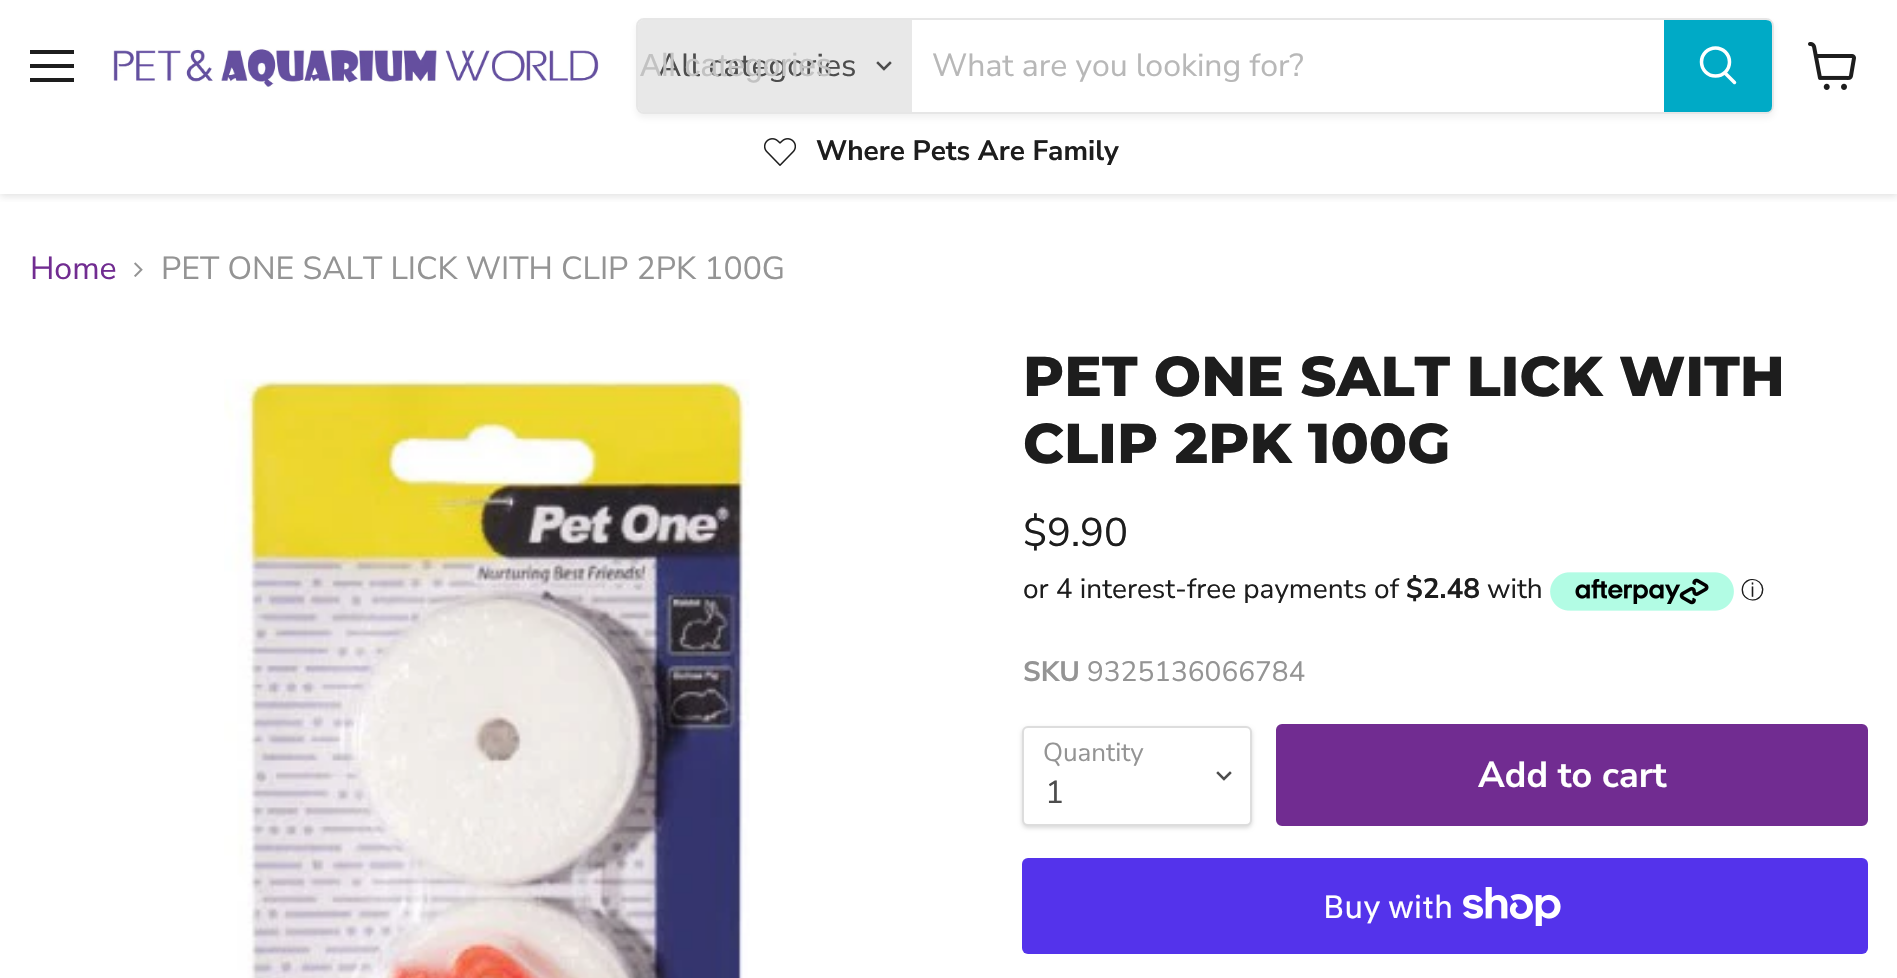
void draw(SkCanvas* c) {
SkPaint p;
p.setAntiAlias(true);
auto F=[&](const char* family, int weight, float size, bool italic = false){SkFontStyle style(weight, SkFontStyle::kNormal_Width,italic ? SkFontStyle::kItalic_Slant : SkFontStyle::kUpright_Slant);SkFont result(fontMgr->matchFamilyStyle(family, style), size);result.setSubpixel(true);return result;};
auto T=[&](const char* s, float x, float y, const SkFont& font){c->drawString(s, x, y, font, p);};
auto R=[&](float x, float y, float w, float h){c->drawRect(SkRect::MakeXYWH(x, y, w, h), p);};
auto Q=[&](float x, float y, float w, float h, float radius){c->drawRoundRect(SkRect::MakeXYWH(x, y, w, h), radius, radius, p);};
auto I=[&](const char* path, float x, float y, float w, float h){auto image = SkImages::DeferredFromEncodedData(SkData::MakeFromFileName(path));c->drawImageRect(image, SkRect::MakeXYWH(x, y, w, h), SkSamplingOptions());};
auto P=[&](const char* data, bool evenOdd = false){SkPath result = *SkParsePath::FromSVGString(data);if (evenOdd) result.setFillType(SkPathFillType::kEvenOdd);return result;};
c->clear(0xffffffff);
c->save();
c->clipRect(SkRect::MakeXYWH(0,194,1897,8));
p.setColor(0x40808080);
p.setMaskFilter(SkMaskFilter::MakeBlur(kNormal_SkBlurStyle, 4));
c->drawRect(SkRect::MakeXYWH(0,2,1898,194),p);
p.setMaskFilter(nullptr);
c->restore();
p.setColor(0xff1d1d1d);
R(30,50,44,4);
R(30,64,44,4);
R(30,78,44,4);
I("1.png",113,48,486,39);
c->save();
c->clipPath(P("M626 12h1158v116h-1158zm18 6h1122c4.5 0 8 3.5 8 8v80c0 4.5-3.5 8-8 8h-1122c-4.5 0-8-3.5-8-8v-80c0-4.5 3.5-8 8-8z",true),true);
p.setColor(0x1c808080);
p.setMaskFilter(SkMaskFilter::MakeBlur(kNormal_SkBlurStyle, 3));
c->drawRoundRect(SkRect::MakeXYWH(636,22,1138,96),8,8,p);
p.setMaskFilter(nullptr);
c->restore();
p.setStroke(true);
p.setStrokeWidth(2);
p.setColor(0x33808080);
c->drawRoundRect(SkRect::MakeXYWH(637,19,1136,94),7,7,p);
p.setStroke(false);
p.setColor(0xffe8e8e8);
c->drawPath(P("M644 20h268v92h-268c-3.5 0-6-2.5-6-6v-80c0-3.5 2.5-6 6-6z"),p);
auto f1 = F("Nunito Sans",400,32);
p.setColor(0xff4d4d4d);
T("All categories",658,76,f1);
auto f2 = F("Liberation Sans",400,32);
p.setColor(0xffc2c2c2);
T("All categories",640,76,f2);
p.setStroke(true);
p.setStrokeWidth(2.5);
p.setStrokeCap(SkPaint::kSquare_Cap);
p.setColor(0xff4d4d4d);
c->drawPath(P("M884 69l6-6m-6 6l-6-6"),p);
p.setStroke(false);
p.setColor(0xffb8b8b8);
T("What are you looking for?",932,76,f1);
p.setColor(0xff00aac6);
c->drawPath(P("M1665 21h101c3 0 5 2 5 5v80c0 3-2 5-5 5h-101z"),p);
p.setStroke(true);
p.setStrokeWidth(2);
p.setStrokeCap(SkPaint::kButt_Cap);
c->drawPath(P("M1665 21h101c3 0 5 2 5 5v80c0 3-2 5-5 5h-101z"),p);
p.setStrokeWidth(3.5);
p.setStrokeCap(SkPaint::kRound_Cap);
p.setColor(0xffffffff);
c->drawPath(P("M1734.5 82.5l-9.5-9.5"),p);
p.setStrokeCap(SkPaint::kButt_Cap);
c->drawCircle(1715.5,62,14,p);
I("2.png",764,138,32,28);
auto f3 = F("Nunito Sans",700,28);
p.setStroke(false);
p.setColor(0xff1d1d1d);
T("Where Pets Are Family",816,160,f3);
I("3.png",1808,42,48,48);
p.setColor(0xff712c91);
T("Home",30,279,f1);
I("4.png",134,262,9,15);
p.setColor(0xff949494);
T("PET ONE SALT LICK WITH CLIP 2PK 100G",161,279,f1);
I("5.png",224,379,526,599);
auto f4 = F("Montserrat",800,56);
p.setColor(0xff1d1d1d);
T("PET ONE SALT LICK WITH",1023,396,f4);
T("CLIP 2PK 100G",1023,463,f4);
auto f5 = F("Nunito Sans",400,40);
T("$9.90",1023,546,f5);
auto f6 = F("Nunito Sans",400,28);
T("or 4 interest-free payments of",1023,598,f6);
T("$2.48",1406,598,f3);
T("with",1487,598,f6);
I("6.png",1550,572,184,39);
auto f7 = F("WenQuanYi Zen Hei",500,23);
T("ⓘ",1741,598,f7);
p.setColor(0xff949494);
T("SKU",1023,681,f3);
T("9325136066784",1087,681,f6);
p.setColor(0x26000000);
p.setMaskFilter(SkMaskFilter::MakeBlur(kNormal_SkBlurStyle, 2));
c->drawRoundRect(SkRect::MakeXYWH(1022,728,230,100),6,6,p);
p.setMaskFilter(nullptr);
p.setColor(0xffffffff);
c->drawRoundRect(SkRect::MakeXYWH(1023,727,228,98),5,5,p);
p.setStroke(true);
p.setStrokeWidth(2);
p.setColor(0xffdddddd);
c->drawRoundRect(SkRect::MakeXYWH(1023,727,228,98),5,5,p);
auto f8 = F("Nunito Sans",400,26);
p.setStroke(false);
p.setColor(0xff949494);
T("Quantity",1043,761,f8);
p.setStroke(true);
p.setStrokeWidth(2.5);
p.setStrokeCap(SkPaint::kSquare_Cap);
p.setColor(0xff4d4d4d);
c->drawPath(P("M1224 779l6-6m-6 6l-6-6"),p);
p.setStroke(false);
T("1",1045,803,f1);
p.setColor(0xff712c91);
c->drawRoundRect(SkRect::MakeXYWH(1277,725,590,100),5,5,p);
p.setStroke(true);
p.setStrokeWidth(2);
p.setStrokeCap(SkPaint::kButt_Cap);
c->drawRoundRect(SkRect::MakeXYWH(1277,725,590,100),5,5,p);
auto f9 = F("Nunito Sans",700,36);
p.setStroke(false);
p.setColor(0xffffffff);
T("Add to cart",1478,787,f9);
p.setColor(0xff5433eb);
Q(1022,858,846,96,6);
auto f10 = F("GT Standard",400,32);
p.setColor(0xffffffff);
T("Buy with",1323,918,f10);
I("7.png",1463,887,98,39);
}
